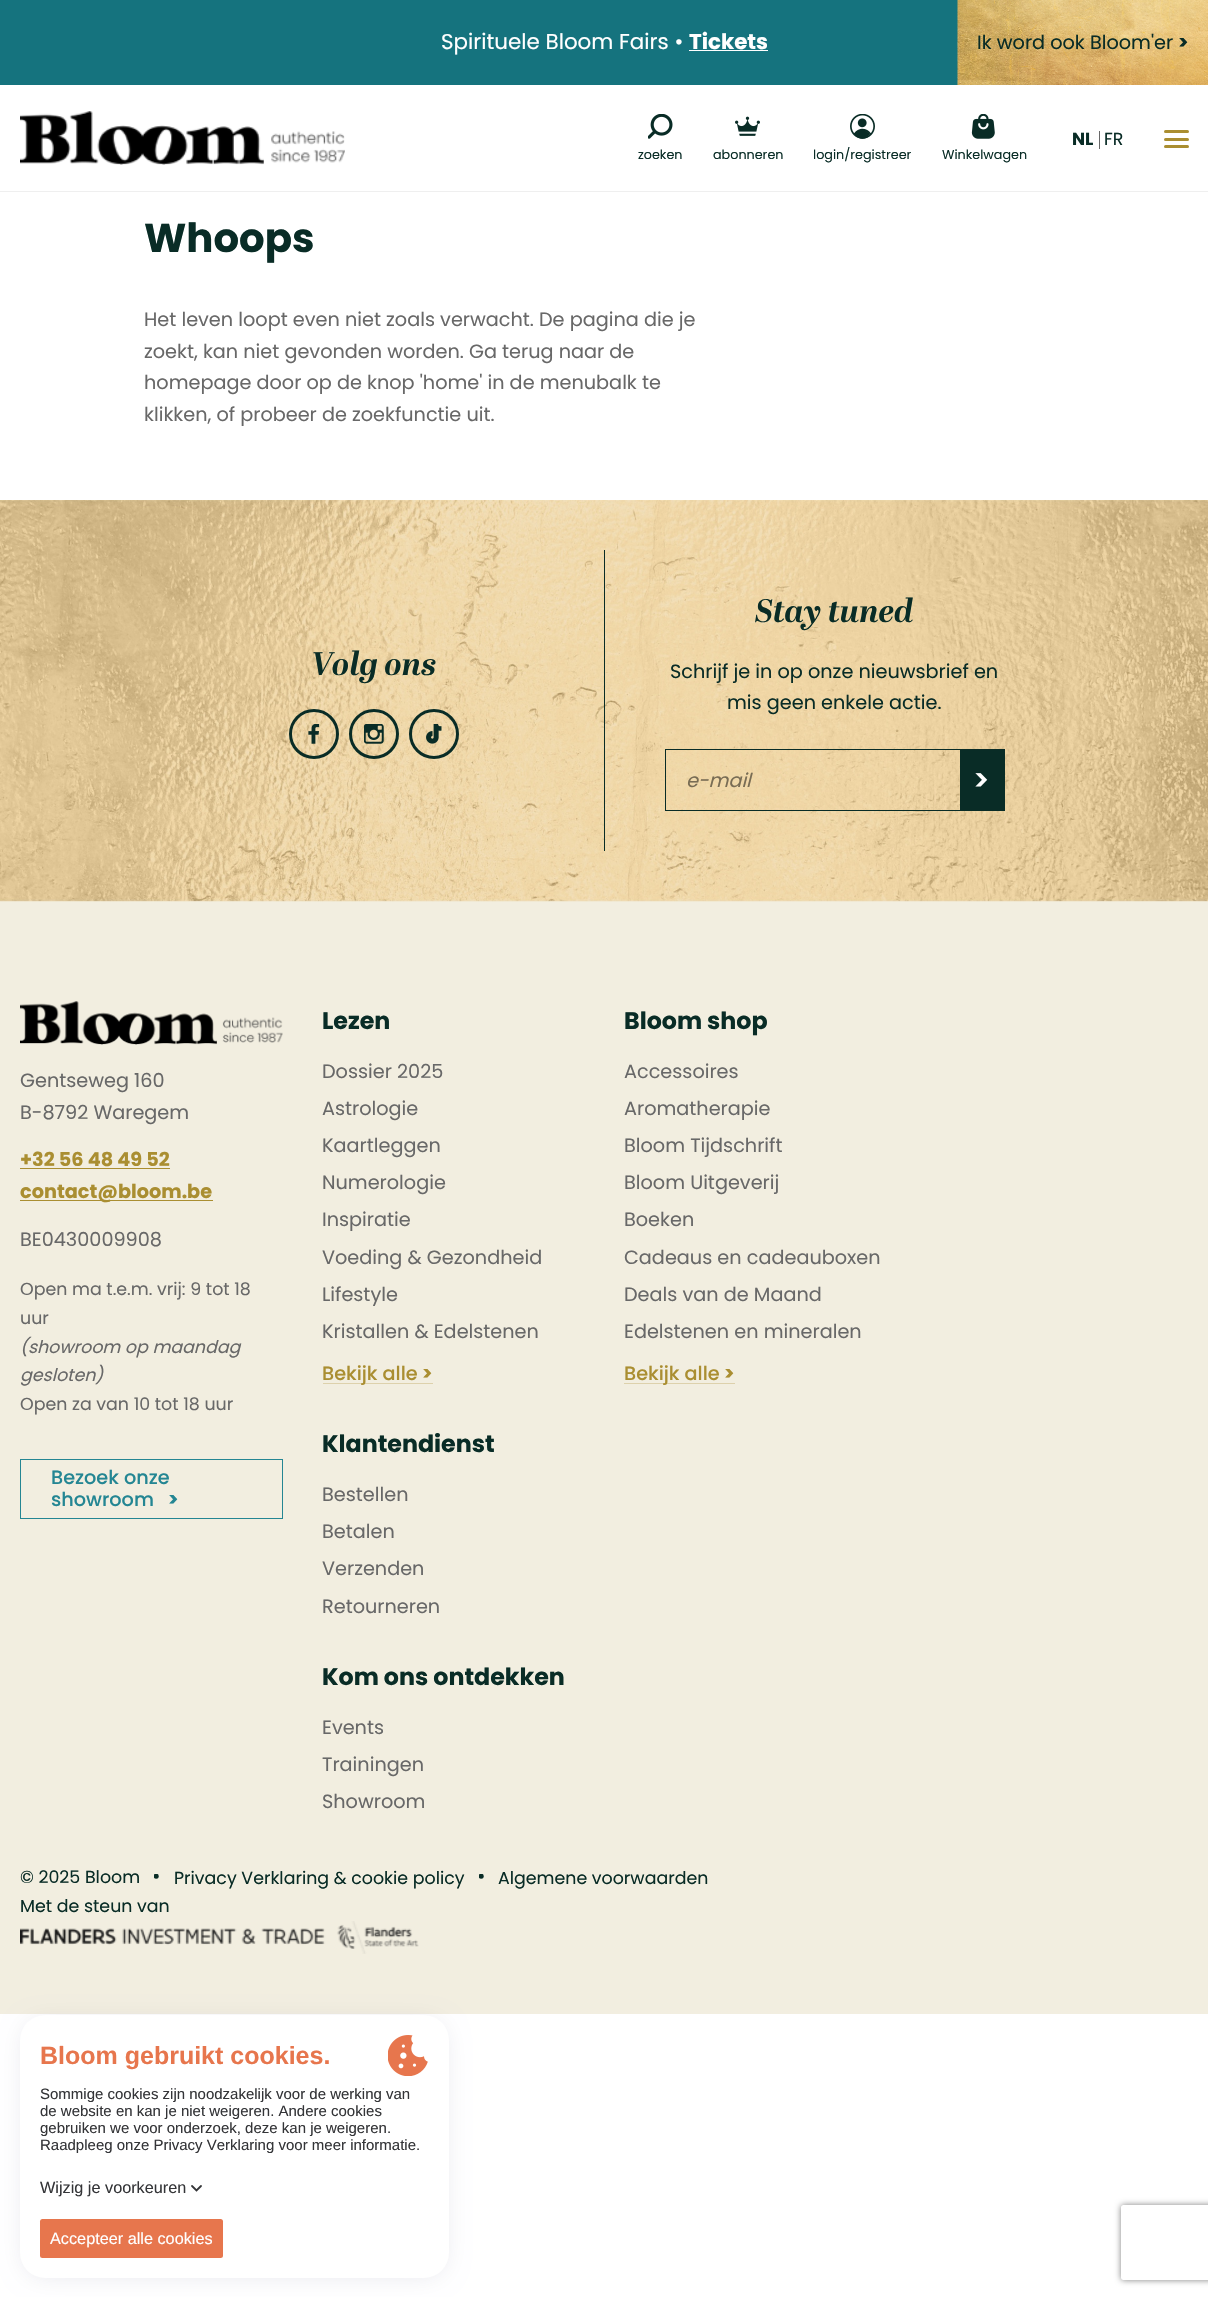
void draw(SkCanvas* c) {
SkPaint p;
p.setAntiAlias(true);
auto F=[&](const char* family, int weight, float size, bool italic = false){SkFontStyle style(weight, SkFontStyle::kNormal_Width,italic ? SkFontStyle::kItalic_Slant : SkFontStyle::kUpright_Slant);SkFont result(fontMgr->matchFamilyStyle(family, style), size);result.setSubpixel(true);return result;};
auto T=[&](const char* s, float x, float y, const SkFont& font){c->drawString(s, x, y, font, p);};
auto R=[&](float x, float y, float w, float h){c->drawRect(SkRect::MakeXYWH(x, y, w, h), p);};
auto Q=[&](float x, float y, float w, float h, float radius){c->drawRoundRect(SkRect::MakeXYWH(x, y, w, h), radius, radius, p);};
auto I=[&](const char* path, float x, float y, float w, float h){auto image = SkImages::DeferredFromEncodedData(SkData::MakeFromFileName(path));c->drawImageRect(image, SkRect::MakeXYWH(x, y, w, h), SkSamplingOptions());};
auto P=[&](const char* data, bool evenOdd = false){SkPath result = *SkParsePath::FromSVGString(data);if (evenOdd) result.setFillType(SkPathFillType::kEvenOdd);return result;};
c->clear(0xffffffff);
p.setColor(0xff15737e);
R(0,0,958,85);
auto f1 = F("Poppins",400,21.4);
p.setColor(0xffffffff);
T("Spirituele Bloom Fairs •",441,49,f1);
auto f2 = F("Poppins",700,21.4);
T("Tickets",689,49,f2);
R(689,50,79,1);
I("1.png",957,0,251,85);
auto f3 = F("Poppins",400,19.25);
p.setColor(0xff092c26);
T("Ik word ook Bloom'er",977,49,f3);
auto f4 = F("Poppins",700,19.25);
T(">",1178,49,f4);
p.setColor(0xffefefef);
R(0,191,1208,1);
I("2.png",20,111,325,54);
auto f5 = F("Poppins",700,17.4);
p.setColor(0xff092c26);
T("NL",1072,145,f5);
p.setColor(0xff686868);
R(1099,131,1,18);
auto f6 = F("Poppins",400,17.4);
p.setColor(0xff092c26);
T("FR",1104,145,f6);
p.setColor(0xffaa8e31);
Q(1164,145,25,3,1.5);
Q(1164,130,25,3,1.5);
Q(1164,138,25,3,1.5);
I("3.png",648,114,25,25);
auto f7 = F("Poppins",400,12.75);
p.setColor(0xff092c26);
T("zoeken",638,159,f7);
I("4.png",735,116,25,20);
T("abonneren",713,159,f7);
I("5.png",850,114,25,25);
T("login/registreer",813,159,f7);
I("6.png",971,114,24,25);
T("Winkelwagen",942,159,f7);
auto f8 = F("Poppins",700,40.25);
T("Whoops",144,252,f8);
p.setColor(0xff686868);
T("Het leven loopt even niet zoals verwacht. De pagina die je",144,326,f3);
T("zoekt, kan niet gevonden worden. Ga terug naar de",144,358,f3);
T("homepage door op de knop 'home' in de menubalk te",144,389,f3);
T("klikken, of probeer de zoekfunctie uit.",144,421,f3);
I("7.png",0,500,1208,402);
p.setColor(0xff092c26);
R(604,550,1,301);
auto f9 = F("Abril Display",700,32.5,true);
T("Volg ons",312,675,f9);
p.setStroke(true);
p.setStrokeWidth(3);
c->drawCircle(314,734,23.5,p);
I("8.png",308,724,12,20);
c->drawCircle(374,734,23.5,p);
I("9.png",364,724,20,20);
c->drawCircle(434,734,23.5,p);
I("10.png",426,724,16,20);
p.setStroke(false);
T("Stay tuned",755,622,f9);
T("Schrijf je in op onze nieuwsbrief en",670,678,f3);
T("mis geen enkele actie.",727,709,f3);
p.setStroke(true);
p.setStrokeWidth(1);
c->drawRect(SkRect::MakeXYWH(665.5,749.5,339,61),p);
auto f10 = F("Poppins",400,19.25,true);
p.setStroke(false);
p.setColor(0xff786c54);
T("e-mail",686,787,f10);
p.setColor(0xff092c26);
R(960,750,44,60);
I("11.png",975,773,13,14);
p.setColor(0x26aa8e31);
R(0,901,1208,1113);
I("12.png",20,1001,263,44);
p.setColor(0xff686868);
T("Gentseweg 160",20,1087,f3);
T("B-8792 Waregem",20,1119,f3);
p.setColor(0xffaa8e31);
T("+32 56 48 49 52",20,1166,f4);
R(20,1168,150,1);
R(20,1200,193,1);
T("contact@bloom.be",20,1198,f4);
p.setColor(0xff686868);
T("BE0430009908",20,1246,f3);
T("Open ma t.e.m. vrij: 9 tot 18",20,1295,f6);
T("uur",20,1324,f6);
auto f11 = F("Poppins",400,17.4,true);
T("(showroom op maandag",20,1353,f11);
T("gesloten)",20,1381,f11);
T("Open za van 10 tot 18 uur",20,1410,f6);
p.setStroke(true);
p.setColor(0xff248693);
c->drawRect(SkRect::MakeXYWH(20.5,1459.5,262,59),p);
auto f12 = F("Poppins",500,19.25);
p.setStroke(false);
T("Bezoek onze",51,1484,f12);
T("showroom",51,1506,f12);
T(">",168,1506,f4);
auto f13 = F("Poppins",700,23.75);
p.setColor(0xff092c26);
T("Lezen",322,1029,f13);
p.setColor(0xff686868);
T("Dossier 2025",322,1078,f3);
T("Astrologie",322,1115,f3);
T("Kaartleggen",322,1152,f3);
T("Numerologie",322,1189,f3);
T("Inspiratie",322,1226,f3);
T("Voeding & Gezondheid",322,1264,f3);
T("Lifestyle",322,1301,f3);
T("Kristallen & Edelstenen",322,1338,f3);
p.setColor(0xffddd1ac);
R(323,1383,110,1);
p.setColor(0xffaa8e31);
T("Bekijk alle",322,1380,f12);
T(">",422,1380,f4);
p.setColor(0xff092c26);
T("Bloom shop",624,1029,f13);
p.setColor(0xff686868);
T("Accessoires",624,1078,f3);
T("Aromatherapie",624,1115,f3);
T("Bloom Tijdschrift",624,1152,f3);
T("Bloom Uitgeverij",624,1189,f3);
T("Boeken",624,1226,f3);
T("Cadeaus en cadeauboxen",624,1264,f3);
T("Deals van de Maand",624,1301,f3);
T("Edelstenen en mineralen",624,1338,f3);
p.setColor(0xffddd1ac);
R(624,1383,111,1);
p.setColor(0xffaa8e31);
T("Bekijk alle",624,1380,f12);
T(">",724,1380,f4);
p.setColor(0xff092c26);
T("Klantendienst",322,1452,f13);
p.setColor(0xff686868);
T("Bestellen",322,1501,f3);
T("Betalen",322,1538,f3);
T("Verzenden",322,1575,f3);
T("Retourneren",322,1613,f3);
p.setColor(0xff092c26);
T("Kom ons ontdekken",322,1685,f13);
p.setColor(0xff686868);
T("Events",322,1734,f3);
T("Trainingen",322,1771,f3);
T("Showroom",322,1808,f3);
p.setColor(0xff092c26);
T("© 2025 Bloom",20,1883,f6);
c->save();
c->clipRect(SkRect::MakeXYWH(154,1874,5,5));
c->drawCircle(156.2,1876.2,2.5,p);
c->restore();
T("Privacy Verklaring & cookie policy",174,1884,f6);
c->save();
c->clipRect(SkRect::MakeXYWH(479,1874,5,5));
c->drawCircle(481.2,1876.2,2.5,p);
c->restore();
T("Algemene voorwaarden",498,1884,f6);
T("Met de steun van",20,1912,f6);
I("13.png",20,1921,399,33);
p.setColor(0x1a01013f);
p.setMaskFilter(SkMaskFilter::MakeBlur(kNormal_SkBlurStyle, 12));
c->drawRoundRect(SkRect::MakeXYWH(25,2023,419,252),20,20,p);
p.setMaskFilter(nullptr);
p.setColor(0xffffffff);
Q(20,2015,429,263,25);
auto f14 = F("Liberation Sans",700,25);
p.setColor(0xffe7764d);
T("Bloom gebruikt cookies.",40,2064,f14);
I("14.png",388,2035,40,41);
auto f15 = F("Liberation Sans",400,15);
p.setColor(0xff343538);
T("Sommige cookies zijn noodzakelijk voor de werking van",40,2099,f15);
T("de website en kan je niet weigeren. Andere cookies",40,2116,f15);
T("gebruiken we voor onderzoek, deze kan je weigeren.",40,2133,f15);
T("Raadpleeg onze Privacy Verklaring voor meer informatie.",40,2150,f15);
auto f16 = F("Liberation Sans",400,16.25);
T("Wijzig je voorkeuren",40,2193,f16);
p.setStroke(true);
p.setStrokeWidth(1.8);
p.setStrokeCap(SkPaint::kRound_Cap);
c->drawPath(P("M192 2186l4.5 4.5l4.5-4.5"),p);
p.setStroke(false);
p.setColor(0xffe7764d);
Q(40,2219,183,39,2.5);
p.setColor(0xffffffff);
T("Accepteer alle cookies",50,2244,f16);
c->save();
c->clipPath(P("M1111 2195h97v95h-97zm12.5 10h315c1.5 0 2.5 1 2.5 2.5v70c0 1.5-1 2.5-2.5 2.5h-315c-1.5 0-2.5-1-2.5-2.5v-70c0-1.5 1-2.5 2.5-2.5z",true),true);
p.setColor(0xff808080);
p.setMaskFilter(SkMaskFilter::MakeBlur(kNormal_SkBlurStyle, 3));
c->drawRoundRect(SkRect::MakeXYWH(1121,2205,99,75),2.5,2.5,p);
p.setMaskFilter(nullptr);
c->restore();
}
